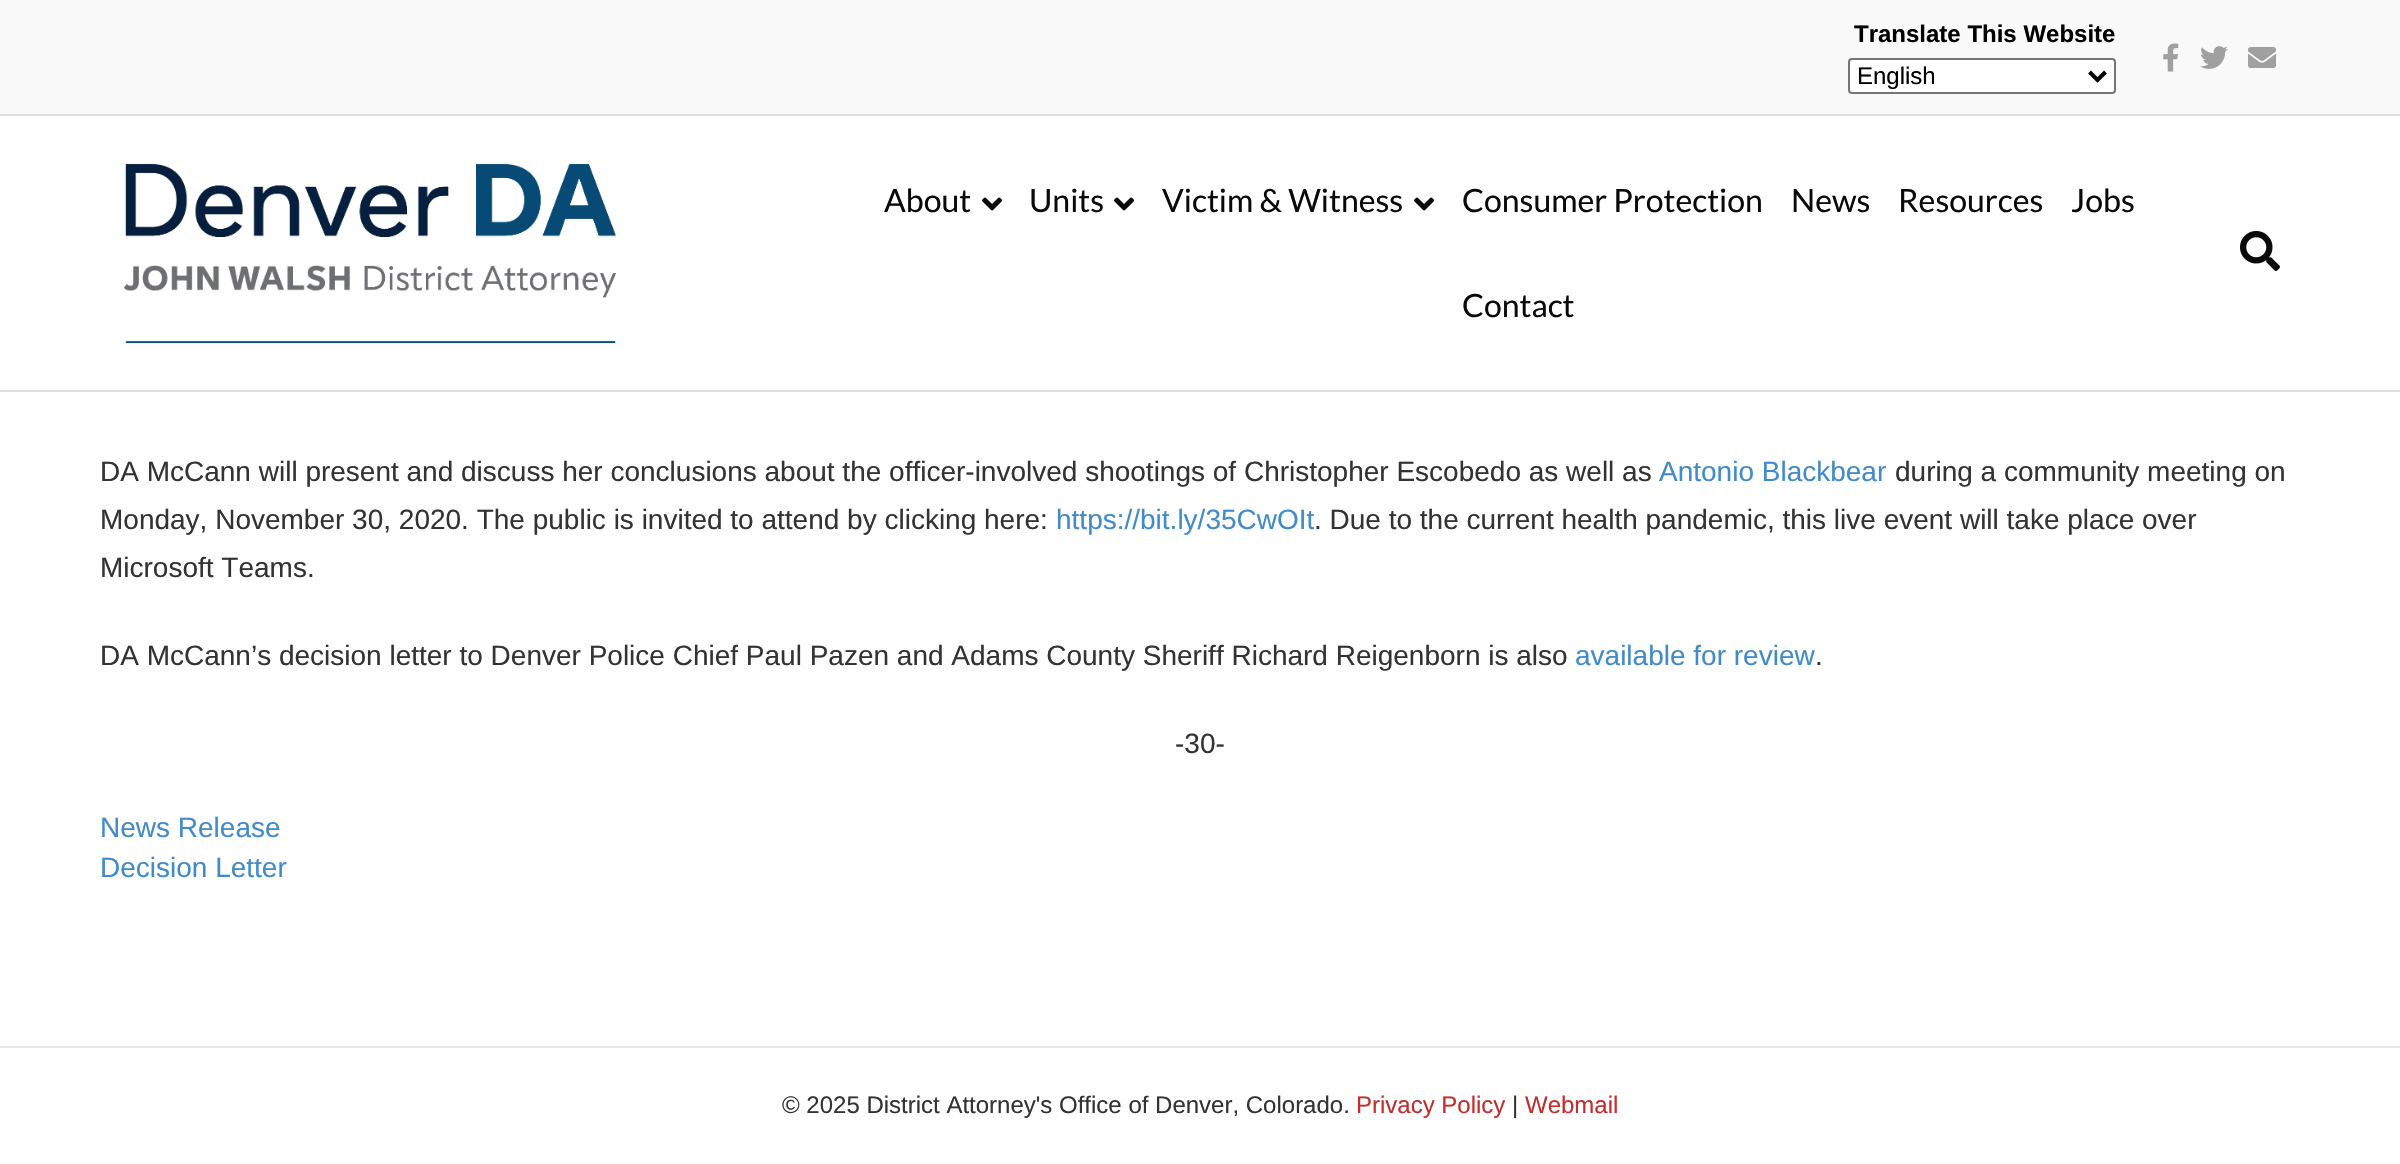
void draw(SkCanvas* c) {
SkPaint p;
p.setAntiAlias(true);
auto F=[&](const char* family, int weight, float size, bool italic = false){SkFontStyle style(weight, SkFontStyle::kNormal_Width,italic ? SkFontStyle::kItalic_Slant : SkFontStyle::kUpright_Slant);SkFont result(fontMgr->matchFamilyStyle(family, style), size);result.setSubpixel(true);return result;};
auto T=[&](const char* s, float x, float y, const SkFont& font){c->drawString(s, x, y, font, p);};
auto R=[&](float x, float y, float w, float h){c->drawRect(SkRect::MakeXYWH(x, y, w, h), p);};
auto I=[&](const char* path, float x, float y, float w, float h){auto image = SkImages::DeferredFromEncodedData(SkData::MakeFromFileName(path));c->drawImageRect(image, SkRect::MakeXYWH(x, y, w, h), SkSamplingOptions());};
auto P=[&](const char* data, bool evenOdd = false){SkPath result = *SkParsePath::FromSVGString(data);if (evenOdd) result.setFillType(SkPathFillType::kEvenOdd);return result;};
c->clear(0xffffffff);
p.setColor(0xfff9f9f9);
R(0,0,2400,114);
p.setColor(0xffe0e0e0);
R(0,114,2400,2);
auto f1 = F("Liberation Sans",700,24);
p.setColor(0xff000000);
T("Translate This Website",1854,42,f1);
p.setColor(0xffffffff);
c->drawRoundRect(SkRect::MakeXYWH(1849,59,266,34),3,3,p);
p.setStroke(true);
p.setStrokeWidth(2);
p.setColor(0xff767676);
c->drawRoundRect(SkRect::MakeXYWH(1849,59,266,34),3,3,p);
p.setStrokeWidth(4);
p.setColor(0xff000000);
c->drawPath(P("M2089.5 72l8 8l8-8"),p);
auto f2 = F("Liberation Sans",400,24);
p.setStroke(false);
T("English",1857,84,f2);
I("1.png",2163,43,16,29);
I("2.png",2200,46,28,23);
I("3.png",2248,47,28,21);
p.setColor(0xffdfdfdf);
R(0,390,2400,2);
I("4.png",124,163,493,181);
auto f3 = F("Lato",400,32);
p.setColor(0xff0a0a0a);
T("About",884,212,f3);
I("5.png",982,197,20,14);
T("Units",1029,212,f3);
I("5.png",1114,197,20,14);
T("Victim & Witness",1162,212,f3);
I("5.png",1414,197,20,14);
T("Consumer Protection",1462,212,f3);
T("News",1791,212,f3);
T("Resources",1898,212,f3);
T("Jobs",2071,212,f3);
T("Contact",1462,317,f3);
I("6.png",2240,231,40,40);
auto f4 = F("Liberation Sans",400,28);
p.setColor(0xff333333);
T("DA McCann will present and discuss her conclusions about the officer-involved shootings of Christopher Escobedo as well as",100,481,f4);
p.setColor(0xff428bca);
T("Antonio Blackbear",1659,481,f4);
p.setColor(0xff333333);
T("during a community meeting on",1895,481,f4);
T("Monday, November 30, 2020. The public is invited to attend by clicking here:",100,529,f4);
p.setColor(0xff428bca);
T("https://bit.ly/35CwOIt",1056,529,f4);
p.setColor(0xff333333);
T(". Due to the current health pandemic, this live event will take place over",1314,529,f4);
T("Microsoft Teams.",100,577,f4);
T("DA McCann’s decision letter to Denver Police Chief Paul Pazen and Adams County Sheriff Richard Reigenborn is also",100,665,f4);
p.setColor(0xff428bca);
T("available for review",1575,665,f4);
p.setColor(0xff333333);
T(".",1815,665,f4);
T("-30-",1175,753,f4);
p.setColor(0xff428bca);
T("News Release",100,837,f4);
T("Decision Letter",100,877,f4);
p.setColor(0xffe6e6e6);
R(0,1046,2400,2);
p.setColor(0xff333333);
T("© 2025 District Attorney's Office of Denver, Colorado.",782,1113,f2);
p.setColor(0xffc42d2d);
T("Privacy Policy",1356,1113,f2);
p.setColor(0xff333333);
T("|",1512,1113,f2);
p.setColor(0xffc42d2d);
T("Webmail",1525,1113,f2);
}
